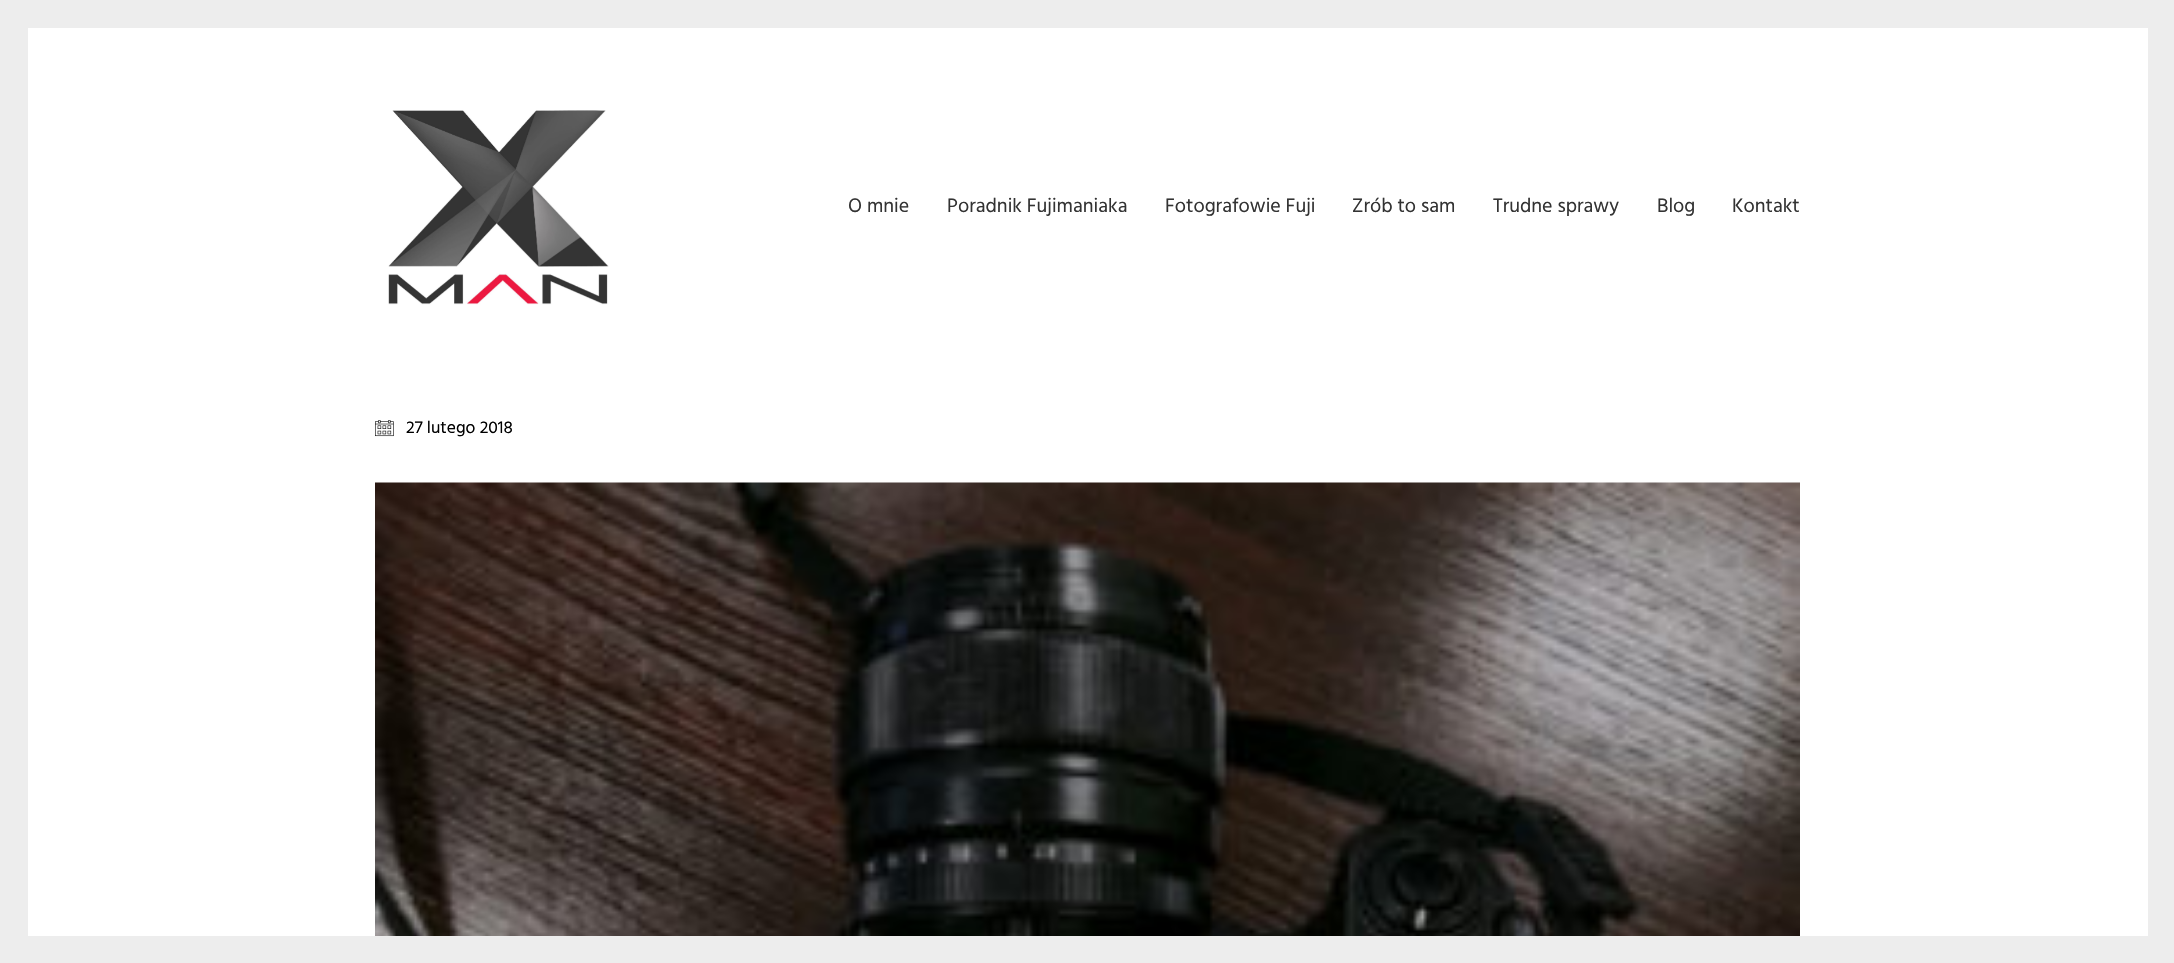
void draw(SkCanvas* c) {
SkPaint p;
p.setAntiAlias(true);
auto F=[&](const char* family, int weight, float size, bool italic = false){SkFontStyle style(weight, SkFontStyle::kNormal_Width,italic ? SkFontStyle::kItalic_Slant : SkFontStyle::kUpright_Slant);SkFont result(fontMgr->matchFamilyStyle(family, style), size);result.setSubpixel(true);return result;};
auto T=[&](const char* s, float x, float y, const SkFont& font){c->drawString(s, x, y, font, p);};
auto R=[&](float x, float y, float w, float h){c->drawRect(SkRect::MakeXYWH(x, y, w, h), p);};
auto I=[&](const char* path, float x, float y, float w, float h){auto image = SkImages::DeferredFromEncodedData(SkData::MakeFromFileName(path));c->drawImageRect(image, SkRect::MakeXYWH(x, y, w, h), SkSamplingOptions());};
c->clear(0xffffffff);
p.setColor(0xffededed);
R(0,0,28,963);
R(28,0,2120,28);
R(2148,0,26,936);
R(28,936,2146,27);
I("1.png",388,110,221,195);
auto f1 = F("Hind",400,20);
p.setColor(0xff333333);
T("O mnie",848,212,f1);
T("Poradnik Fujimaniaka",947,212,f1);
T("Fotografowie Fuji",1165,212,f1);
T("Zrób to sam",1352,212,f1);
T("Trudne sprawy",1493,212,f1);
T("Blog",1657,212,f1);
T("Kontakt",1732,212,f1);
I("2.png",375,420,19,17);
auto f2 = F("Hind",400,17.5);
p.setColor(0xff000000);
T("27 lutego 2018",406,433,f2);
I("3.png",375,482,1425,454);
}
